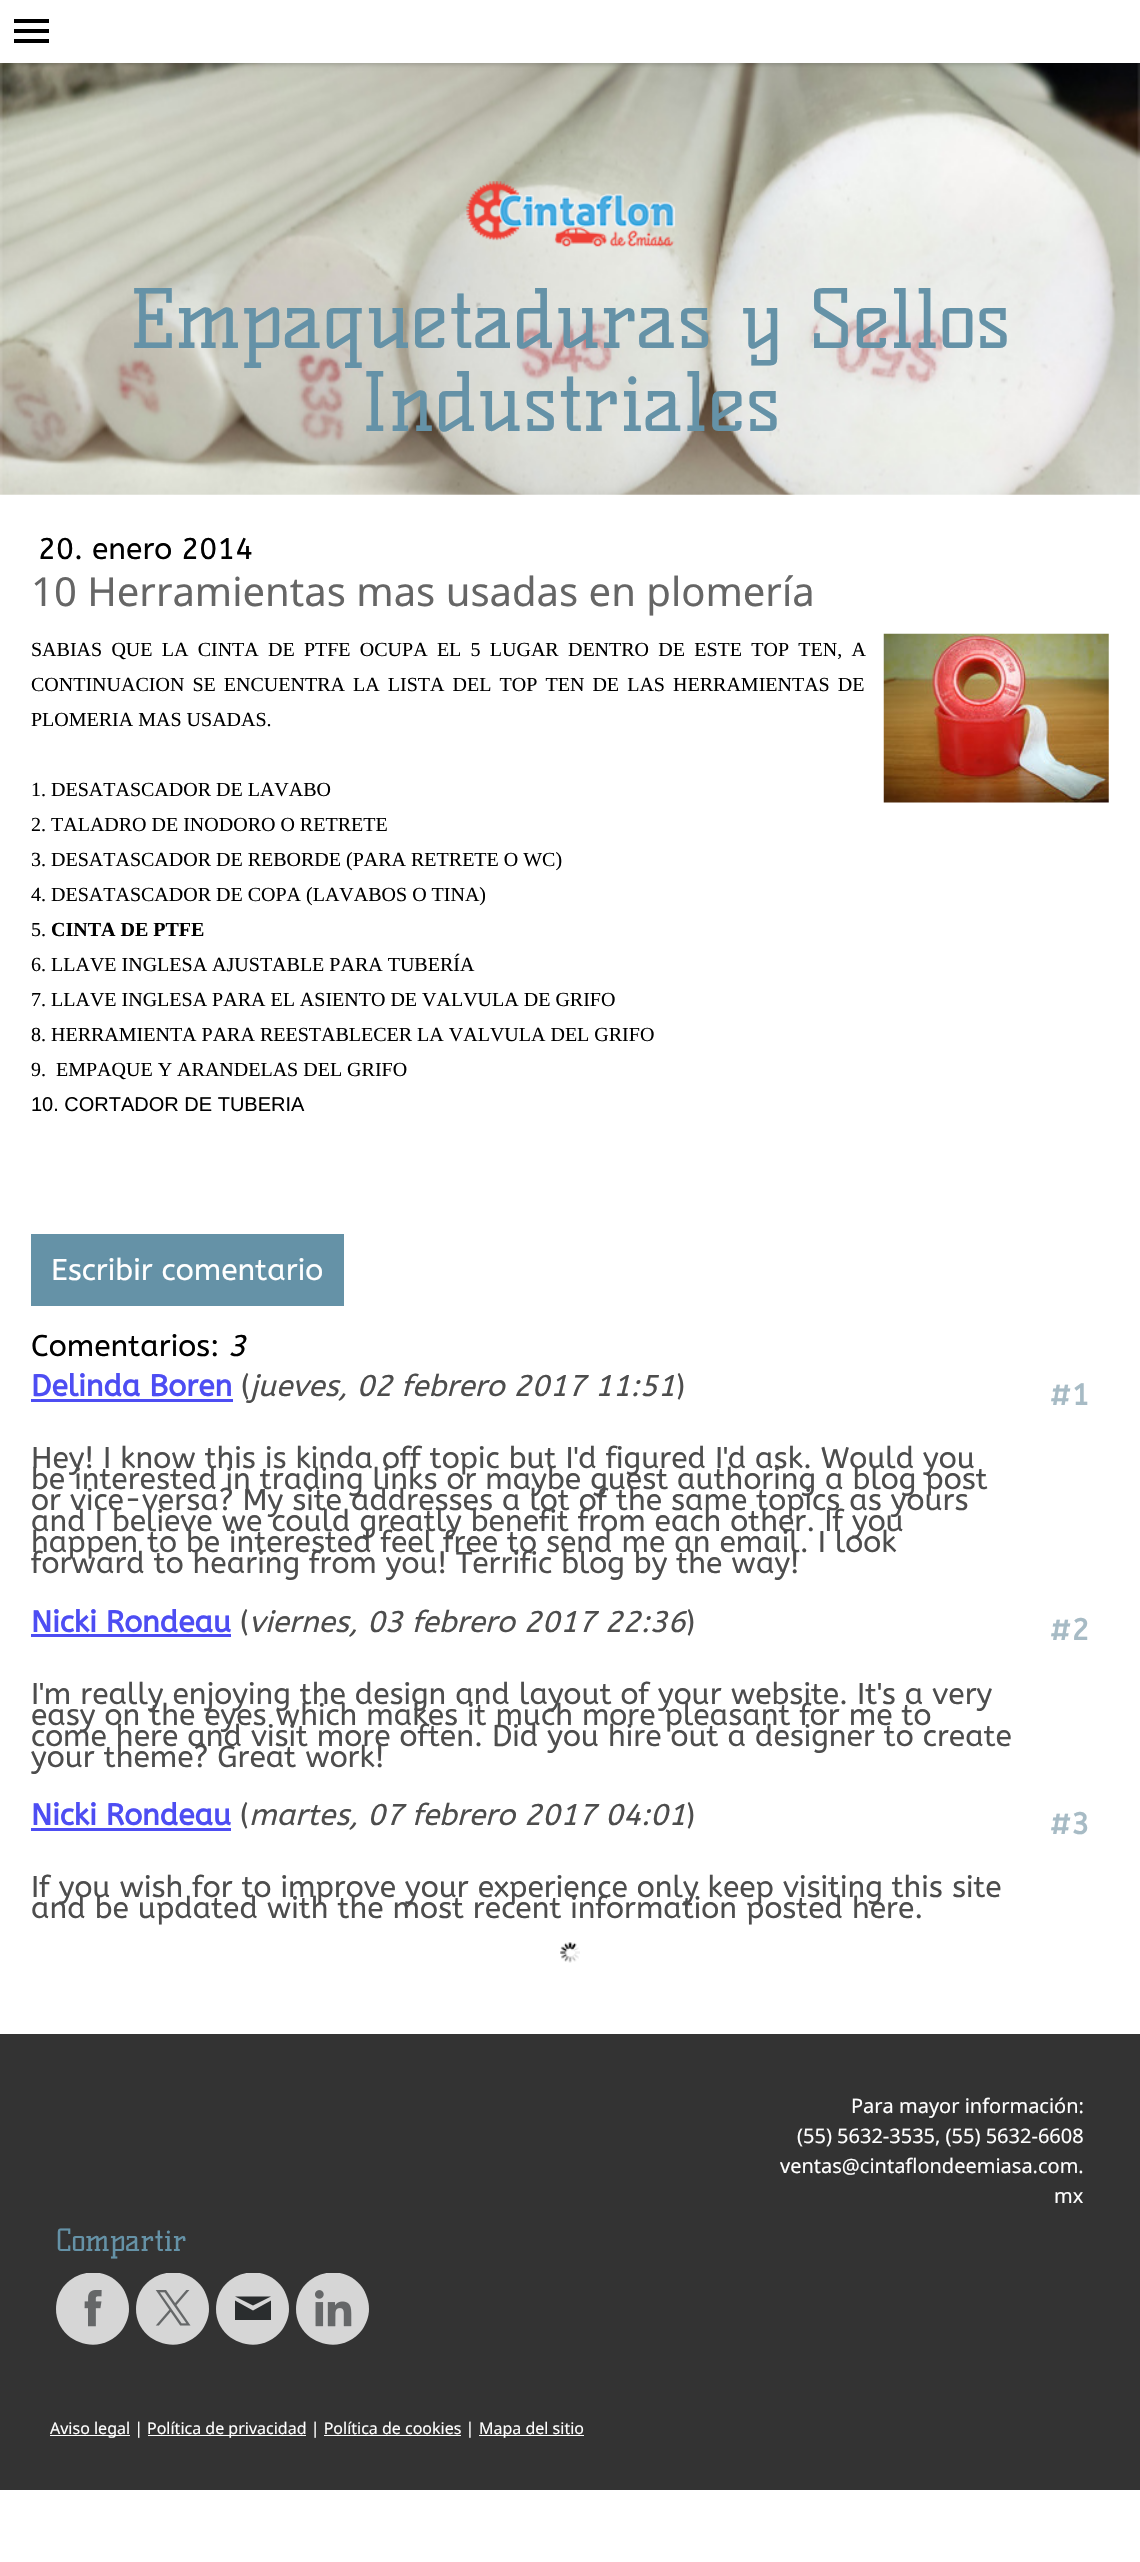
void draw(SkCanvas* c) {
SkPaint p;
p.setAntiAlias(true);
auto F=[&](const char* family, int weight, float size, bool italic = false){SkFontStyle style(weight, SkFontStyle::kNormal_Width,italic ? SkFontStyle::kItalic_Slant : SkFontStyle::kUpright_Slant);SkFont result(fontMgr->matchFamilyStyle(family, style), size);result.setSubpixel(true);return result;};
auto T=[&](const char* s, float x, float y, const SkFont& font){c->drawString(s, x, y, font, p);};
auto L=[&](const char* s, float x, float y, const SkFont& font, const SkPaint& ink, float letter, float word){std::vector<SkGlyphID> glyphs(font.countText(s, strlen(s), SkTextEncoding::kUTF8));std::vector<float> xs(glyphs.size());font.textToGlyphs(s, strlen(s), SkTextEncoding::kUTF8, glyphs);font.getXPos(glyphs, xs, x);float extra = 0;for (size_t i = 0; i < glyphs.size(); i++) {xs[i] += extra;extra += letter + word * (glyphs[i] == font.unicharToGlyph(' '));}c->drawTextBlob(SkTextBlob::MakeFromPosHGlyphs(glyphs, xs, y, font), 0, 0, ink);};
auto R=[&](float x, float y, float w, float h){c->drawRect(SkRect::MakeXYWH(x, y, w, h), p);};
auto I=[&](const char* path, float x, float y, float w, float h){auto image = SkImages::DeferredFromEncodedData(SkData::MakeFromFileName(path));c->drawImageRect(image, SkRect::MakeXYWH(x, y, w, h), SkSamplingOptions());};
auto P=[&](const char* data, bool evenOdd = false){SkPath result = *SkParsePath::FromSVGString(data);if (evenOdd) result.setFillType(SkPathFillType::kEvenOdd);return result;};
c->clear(0xffffffff);
I("1.png",0,63,1140,432);
p.setColor(0x29000000);
p.setMaskFilter(SkMaskFilter::MakeBlur(kNormal_SkBlurStyle, 2));
c->drawRect(SkRect::MakeXYWH(0,3,1140,62),p);
p.setMaskFilter(nullptr);
p.setColor(0xffffffff);
R(0,0,1140,63);
p.setColor(0xff000000);
R(14,29,35,4);
R(14,19,35,4);
R(14,39,35,4);
I("2.png",466,181,210,66);
auto f1 = F("Kelly Slab",400,80);
p.setColor(0xff6592a7);
T("Empaquetaduras y Sellos",129,348,f1);
T("Industriales",360,431,f1);
auto f2 = F("ABeeZee",400,30);
p.setColor(0xff000000);
T("20. enero 2014",38,559,f2);
auto f3 = F("Noto Sans",400,40);
p.setColor(0xff666666);
T("10 Herramientas mas usadas en plomería",31,606,f3);
auto f4 = F("Liberation Serif",400,20);
p.setColor(0xff000000);
L("SABIAS QUE LA CINTA DE PTFE OCUPA EL 5 LUGAR DENTRO DE ESTE TOP TEN, A",31,656,f4,p,0,4.25);
L("CONTINUACION SE ENCUENTRA LA LISTA DEL TOP TEN DE LAS HERRAMIENTAS DE",31,691,f4,p,0,3.1);
T("PLOMERIA MAS USADAS.",31,726,f4);
T("1. DESATASCADOR DE LAVABO",31,796,f4);
T("2. TALADRO DE INODORO O RETRETE",31,831,f4);
T("3. DESATASCADOR DE REBORDE (PARA RETRETE O WC)",31,866,f4);
T("4. DESATASCADOR DE COPA (LAVABOS O TINA)",31,901,f4);
T("5.",31,936,f4);
auto f5 = F("Liberation Serif",700,20);
T("CINTA DE PTFE",51,936,f5);
T("6. LLAVE INGLESA AJUSTABLE PARA TUBERÍA",31,971,f4);
T("7. LLAVE INGLESA PARA EL ASIENTO DE VALVULA DE GRIFO",31,1006,f4);
T("8. HERRAMIENTA PARA REESTABLECER LA VALVULA DEL GRIFO",31,1041,f4);
T("9.  EMPAQUE Y ARANDELAS DEL GRIFO",31,1076,f4);
auto f6 = F("Liberation Sans",400,20);
T("10. CORTADOR DE TUBERIA",31,1111,f6);
I("3.png",883,633,226,170);
p.setColor(0xff6592a7);
R(31,1234,313,72);
p.setColor(0xffffffff);
T("Escribir comentario",51,1280,f2);
p.setColor(0xff000000);
T("Comentarios:",31,1356,f2);
auto f7 = F("ABeeZee",400,30,true);
T("3",228,1356,f7);
auto f8 = F("ABeeZee",700,30);
p.setColor(0xff4d4df3);
T("Delinda Boren",31,1396,f8);
R(31,1399,202,3);
p.setColor(0xff4d4d4d);
T("(",241,1396,f2);
T("jueves, 02 febrero 2017 11:51",250,1396,f7);
T(")",676,1396,f2);
p.setColor(0xffa7bbc5);
T("#1",1049,1405,f8);
p.setColor(0xff4d4d4d);
T("Hey! I know this is kinda off topic but I'd figured I'd ask. Would you",31,1468,f2);
T("be interested in trading links or maybe guest authoring a blog post",31,1489,f2);
T("or vice-versa? My site addresses a lot of the same topics as yours",31,1510,f2);
T("and I believe we could greatly benefit from each other. If you",31,1531,f2);
T("happen to be interested feel free to send me an email. I look",31,1552,f2);
T("forward to hearing from you! Terrific blog by the way!",31,1573,f2);
p.setColor(0xff4d4df3);
T("Nicki Rondeau",31,1632,f8);
R(31,1634,200,3);
p.setColor(0xff4d4d4d);
T("(",240,1632,f2);
T("viernes, 03 febrero 2017 22:36",249,1632,f7);
T(")",686,1632,f2);
p.setColor(0xffa7bbc5);
T("#2",1049,1640,f8);
p.setColor(0xff4d4d4d);
T("I'm really enjoying the design and layout of your website. It's a very",31,1704,f2);
T("easy on the eyes which makes it much more pleasant for me to",31,1725,f2);
T("come here and visit more often. Did you hire out a designer to create",31,1746,f2);
T("your theme? Great work!",31,1767,f2);
p.setColor(0xff4d4df3);
T("Nicki Rondeau",31,1825,f8);
R(31,1828,200,3);
p.setColor(0xff4d4d4d);
T("(",240,1825,f2);
T("martes, 07 febrero 2017 04:01",249,1825,f7);
T(")",686,1825,f2);
p.setColor(0xffa7bbc5);
T("#3",1049,1834,f8);
p.setColor(0xff4d4d4d);
T("If you wish for to improve your experience only keep visiting this site",31,1897,f2);
T("and be updated with the most recent information posted here.",31,1918,f2);
I("4.png",560,1942,20,21);
p.setColor(0xff333333);
R(0,2034,1140,456);
auto f9 = F("Noto Sans",400,20);
p.setColor(0xffffffff);
T("Para mayor información:",851,2113,f9);
T("(55) 5632-3535, (55) 5632-6608",797,2143,f9);
T("ventas@cintaflondeemiasa.com.",780,2173,f9);
T("mx",1054,2203,f9);
auto f10 = F("Kelly Slab",400,30);
p.setColor(0xff6592a7);
T("Compartir",56,2251,f10);
c->save();
c->clipRect(SkRect::MakeXYWH(56,2273,1028,87));
p.setColor(0xffd6d6d6);
c->drawPath(P("M56 2309c0 34 45 49 66 21c4-6 7-13 7-21c0-8-3-16-7-22c-21-28-66-13-66 22z"),p);
c->restore();
I("5.png",84,2290,18,37);
c->save();
c->clipRect(SkRect::MakeXYWH(56,2273,1028,87));
c->drawPath(P("M136 2309c0 34 45 49 66 21c4-6 7-13 7-21c0-8-3-16-7-22c-21-28-66-13-66 22z"),p);
c->restore();
I("6.png",155,2290,36,36);
c->save();
c->clipRect(SkRect::MakeXYWH(56,2273,1028,87));
c->drawPath(P("M216 2309c0 34 45 49 66 21c4-6 7-13 7-21c0-8-3-16-7-22c-21-28-66-13-66 22z"),p);
c->restore();
p.setColor(0xff2a2d2e);
c->drawPath(P("M271 2320h-36v-19.5l18 10l18-10zm0-23.5h-36l18 9z"),p);
c->save();
c->clipRect(SkRect::MakeXYWH(56,2273,1028,87));
p.setColor(0xffd6d6d6);
c->drawPath(P("M296 2309c0 34 45 49 66 21c4-6 7-13 7-21c0-8-3-16-7-22c-21-28-66-13-66 22z"),p);
c->restore();
I("7.png",315,2290,37,37);
p.setColor(0xffffffff);
R(50,2435,80,1);
auto f11 = F("Noto Sans",400,16);
T("Aviso legal |",50,2434,f11);
R(148,2435,158,1);
T("Política de privacidad | Política de cookies |",147,2434,f11);
R(479,2435,105,1);
T("Mapa del sitio",479,2434,f11);
R(324,2435,137,1);
}
